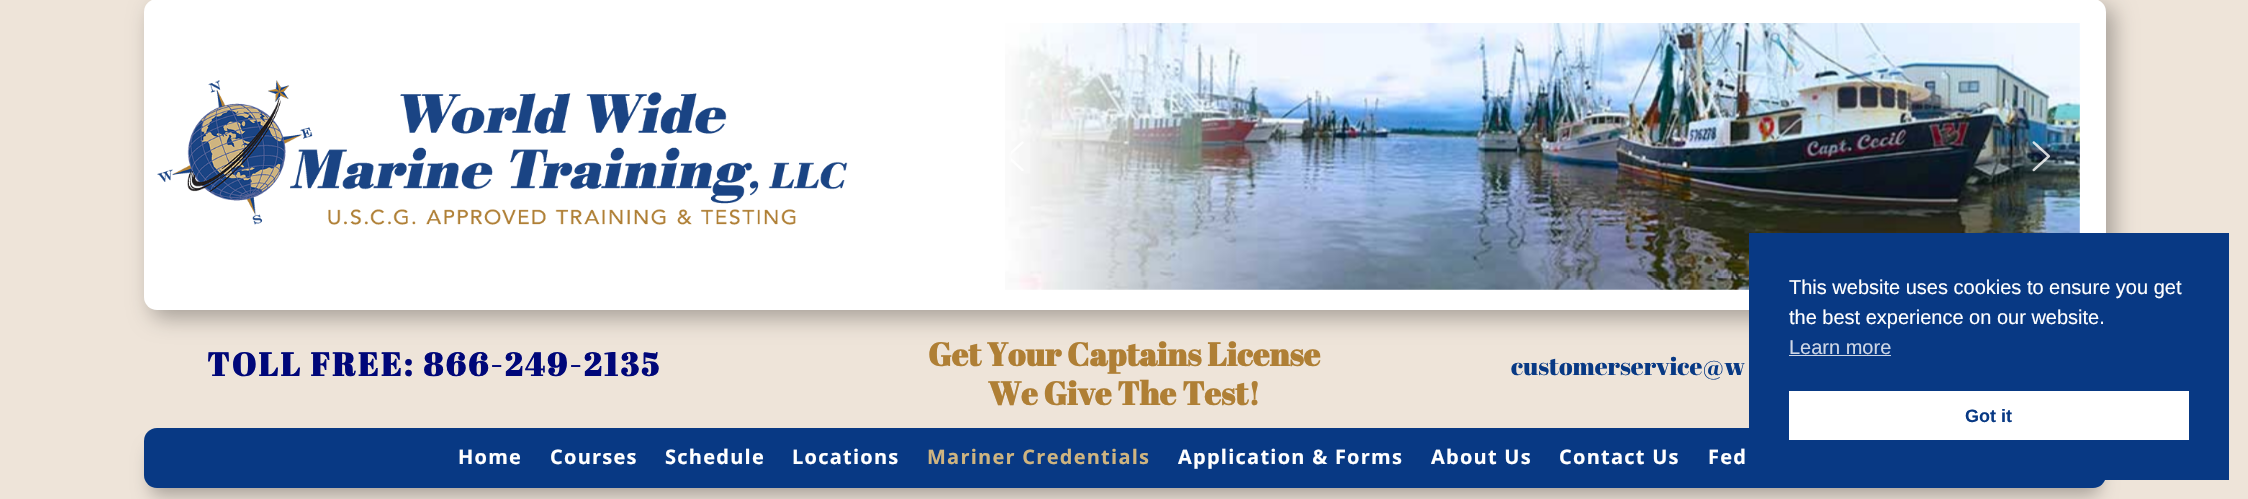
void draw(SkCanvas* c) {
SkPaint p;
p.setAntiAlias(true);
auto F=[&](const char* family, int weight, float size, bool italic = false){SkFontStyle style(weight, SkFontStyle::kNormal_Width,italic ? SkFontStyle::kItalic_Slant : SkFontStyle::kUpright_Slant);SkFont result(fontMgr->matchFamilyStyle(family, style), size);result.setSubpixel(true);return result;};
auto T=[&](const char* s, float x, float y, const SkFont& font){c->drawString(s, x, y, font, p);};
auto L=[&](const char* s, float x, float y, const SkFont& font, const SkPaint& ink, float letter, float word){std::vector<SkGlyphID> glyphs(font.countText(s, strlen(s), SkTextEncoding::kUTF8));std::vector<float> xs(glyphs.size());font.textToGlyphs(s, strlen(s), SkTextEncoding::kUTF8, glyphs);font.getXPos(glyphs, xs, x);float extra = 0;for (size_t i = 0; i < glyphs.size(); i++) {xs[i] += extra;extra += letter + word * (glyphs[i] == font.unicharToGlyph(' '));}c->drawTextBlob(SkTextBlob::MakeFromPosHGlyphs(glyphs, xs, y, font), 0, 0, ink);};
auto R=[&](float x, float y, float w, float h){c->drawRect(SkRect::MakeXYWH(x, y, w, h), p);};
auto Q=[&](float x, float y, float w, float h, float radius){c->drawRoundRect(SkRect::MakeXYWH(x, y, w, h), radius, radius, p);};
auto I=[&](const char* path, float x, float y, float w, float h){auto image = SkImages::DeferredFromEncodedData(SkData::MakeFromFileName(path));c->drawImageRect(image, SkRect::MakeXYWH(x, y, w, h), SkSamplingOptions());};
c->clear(0xffeee4d9);
p.setColor(0x4d000000);
p.setMaskFilter(SkMaskFilter::MakeBlur(kNormal_SkBlurStyle, 11));
c->drawRoundRect(SkRect::MakeXYWH(151,6,1963,312),13,13,p);
p.setMaskFilter(nullptr);
p.setColor(0xffffffff);
Q(144,-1,1962,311,13);
I("1.png",157,80,691,145);
I("2.png",1005,23,1075,267);
I("3.png",1011,141,13,30);
I("4.png",2032,141,18,31);
auto f1 = F("Abril Fatface",700,32.5);
p.setColor(0xff000779);
L("TOLL FREE: 866-249-2135",207,376,f1,p,2.5,0);
p.setColor(0xffaf7f35);
T("Get Your Captains License",928,366,f1);
T("We Give The Test!",988,405,f1);
auto f2 = F("Abril Fatface",400,25);
p.setColor(0xff083984);
T("customerservice@w",1511,375,f2);
p.setColor(0x4d000000);
p.setMaskFilter(SkMaskFilter::MakeBlur(kNormal_SkBlurStyle, 9));
c->drawRoundRect(SkRect::MakeXYWH(151,450,1948,45),5,5,p);
p.setMaskFilter(nullptr);
p.setColor(0xff083984);
Q(144,428,1962,60,13);
auto f3 = F("Open Sans",700,20);
p.setColor(0xffffffff);
L("Home",458,464,f3,p,1.25,0);
L("Courses",550,464,f3,p,1.25,0);
L("Schedule",665,464,f3,p,1.25,0);
L("Locations",792,464,f3,p,1.25,0);
p.setColor(0xffceb480);
L("Mariner Credentials",927,464,f3,p,1.25,0);
p.setColor(0xffffffff);
L("Application & Forms",1178,464,f3,p,1.25,0);
L("About Us",1431,464,f3,p,1.25,0);
L("Contact Us",1559,464,f3,p,1.25,0);
L("Fed",1708,464,f3,p,1.25,0);
p.setColor(0xff083984);
R(1749,233,480,247);
auto f4 = F("Liberation Sans",400,20);
p.setColor(0xffffffff);
T("This website uses cookies to ensure you get",1789,294,f4);
T("the best experience on our website.",1789,324,f4);
p.setColor(0xffced7e6);
T("Learn more",1789,354,f4);
R(1789,355,102,1);
p.setColor(0xffffffff);
R(1789,391,400,49);
auto f5 = F("Liberation Sans",700,18);
p.setColor(0xff083984);
T("Got it",1965,422,f5);
}
